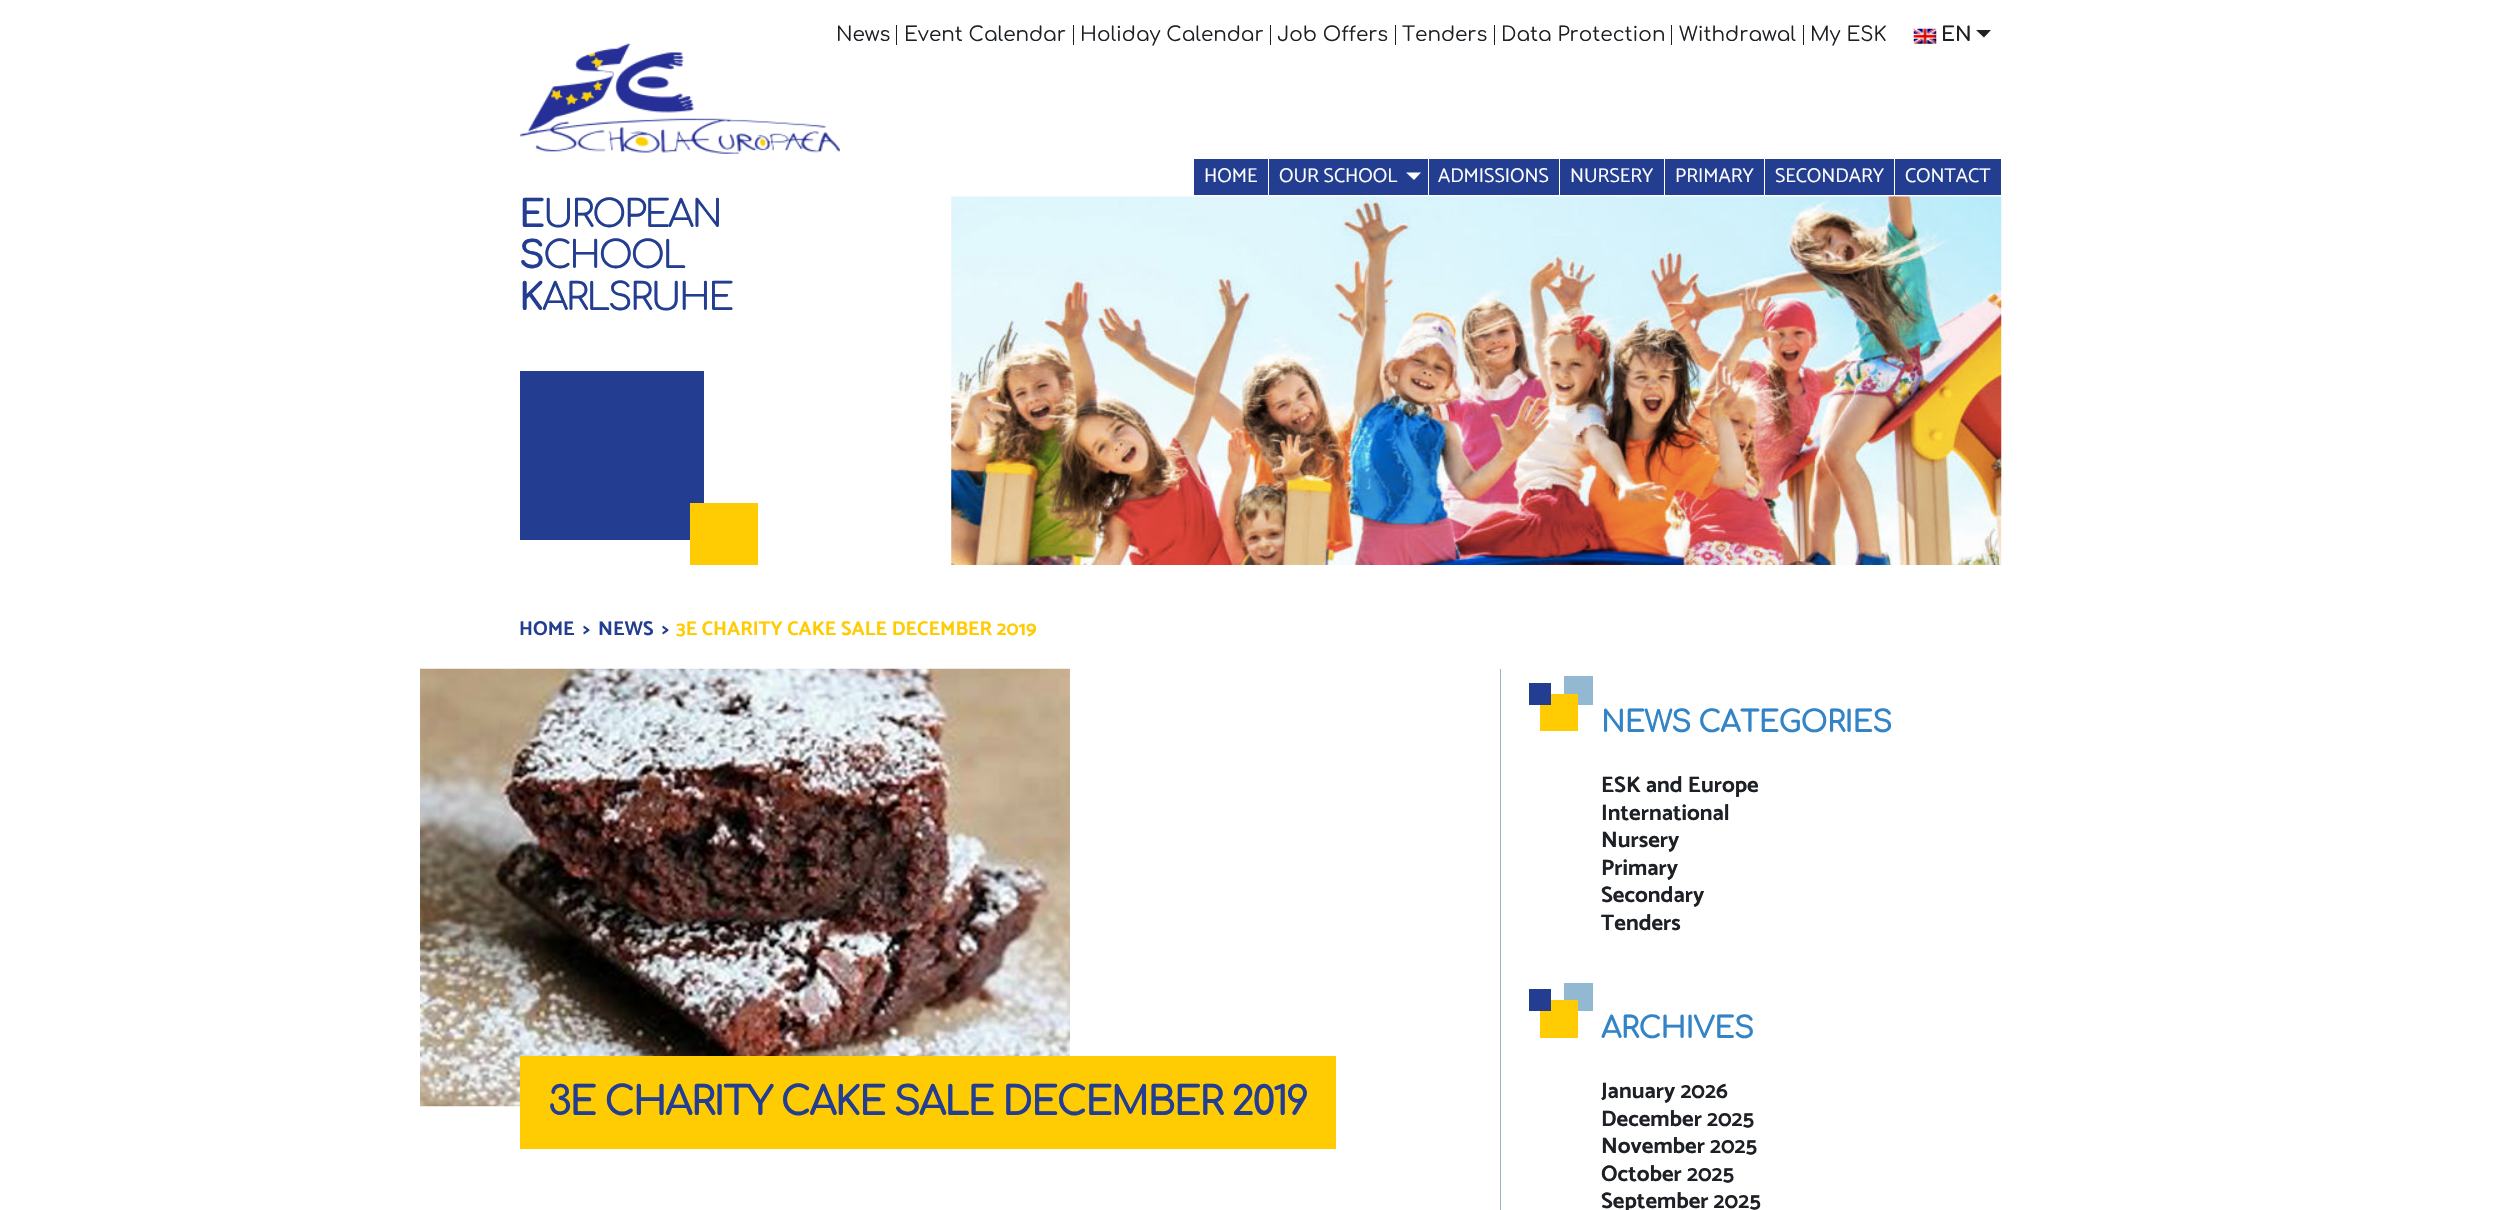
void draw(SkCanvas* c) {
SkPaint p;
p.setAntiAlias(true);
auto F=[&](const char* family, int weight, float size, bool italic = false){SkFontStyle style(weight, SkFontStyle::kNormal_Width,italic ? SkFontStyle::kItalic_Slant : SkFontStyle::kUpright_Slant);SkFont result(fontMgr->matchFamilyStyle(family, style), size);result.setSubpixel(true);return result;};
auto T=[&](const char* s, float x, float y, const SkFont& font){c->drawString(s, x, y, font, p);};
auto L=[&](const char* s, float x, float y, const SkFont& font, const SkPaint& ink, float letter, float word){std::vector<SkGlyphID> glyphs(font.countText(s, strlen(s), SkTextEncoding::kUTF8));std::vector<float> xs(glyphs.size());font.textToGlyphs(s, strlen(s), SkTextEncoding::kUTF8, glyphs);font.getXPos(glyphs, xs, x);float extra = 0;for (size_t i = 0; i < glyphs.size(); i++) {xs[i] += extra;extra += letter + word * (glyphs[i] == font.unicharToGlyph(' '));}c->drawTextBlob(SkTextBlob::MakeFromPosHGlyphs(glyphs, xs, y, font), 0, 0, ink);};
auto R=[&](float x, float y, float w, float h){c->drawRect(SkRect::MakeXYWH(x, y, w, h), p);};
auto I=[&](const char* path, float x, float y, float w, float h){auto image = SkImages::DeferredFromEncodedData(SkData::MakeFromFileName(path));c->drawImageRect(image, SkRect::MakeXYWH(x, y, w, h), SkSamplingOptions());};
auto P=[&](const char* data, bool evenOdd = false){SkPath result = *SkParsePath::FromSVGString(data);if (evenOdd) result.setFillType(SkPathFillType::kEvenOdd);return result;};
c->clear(0xffffffff);
p.setColor(0xff1d2125);
R(896,25,1,20);
auto f1 = F("Comfortaa",400,20);
T("News",836,41,f1);
R(1073,25,1,20);
T("Event Calendar",904,41,f1);
R(1270,25,1,20);
T("Holiday Calendar",1080,41,f1);
R(1395,25,1,20);
T("Job Offers",1277,41,f1);
R(1494,25,1,20);
T("Tenders",1402,41,f1);
R(1671,25,1,20);
T("Data Protection",1501,41,f1);
R(1803,25,1,20);
T("Withdrawal",1679,41,f1);
T("My ESK",1810,41,f1);
I("1.png",1913,28,24,16);
auto f2 = F("Comfortaa",700,20);
T("EN",1941,41,f2);
c->drawPath(P("M1976 30h15l-7 7.5z"),p);
I("2.png",520,43,320,111);
p.setColor(0xff233e90);
R(1194,159,74,36);
auto f3 = F("Catamaran",400,20);
p.setColor(0xffffffff);
T("HOME",1204,182,f3);
p.setColor(0xff233e90);
R(1269,159,159,36);
p.setColor(0xffffffff);
T("OUR SCHOOL",1279,182,f3);
c->drawPath(P("M1406 172.5h15l-7 7.5z"),p);
p.setColor(0xff233e90);
R(1429,159,130,36);
p.setColor(0xffffffff);
T("ADMISSIONS",1438,182,f3);
p.setColor(0xff233e90);
R(1560,159,104,36);
p.setColor(0xffffffff);
T("NURSERY",1570,182,f3);
p.setColor(0xff233e90);
R(1665,159,99,36);
p.setColor(0xffffffff);
T("PRIMARY",1675,182,f3);
p.setColor(0xff233e90);
R(1765,159,129,36);
p.setColor(0xffffffff);
T("SECONDARY",1775,182,f3);
p.setColor(0xff233e90);
R(1895,159,106,36);
p.setColor(0xffffffff);
T("CONTACT",1905,182,f3);
auto f4 = F("Comfortaa",700,37.5);
p.setColor(0xff233e90);
L("E",519,227,f4,p,-2.5,0);
auto f5 = F("Comfortaa",400,37.5);
L("UROPEAN",543,227,f5,p,-2.5,0);
L("S",519,268,f4,p,-2.5,0);
L("CHOOL",543,268,f5,p,-2.5,0);
L("K",519,310,f4,p,-2.5,0);
L("ARLSRUHE",542,310,f5,p,-2.5,0);
R(520,371,184,169);
p.setColor(0xffffcc04);
R(690,503,68,62);
I("3.png",951,196,1051,369);
auto f6 = F("Catamaran",700,20);
p.setColor(0xff233e90);
T("HOME",519,635,f6);
T(">",583,635,f6);
T("NEWS",598,635,f6);
T(">",662,635,f6);
p.setColor(0xffffcc04);
T("3E CHARITY CAKE SALE DECEMBER 2019",676,635,f6);
p.setColor(0xff93b8d1);
R(1500,669,1,541);
I("4.png",420,668,650,439);
p.setColor(0xffffcc04);
R(520,1056,816,93);
auto f7 = F("Comfortaa",700,40);
p.setColor(0xff233e90);
L("3E CHARITY CAKE SALE DECEMBER 2019",548,1115,f7,p,-2.5,0);
p.setColor(0xff93b8d1);
R(1564,676,29,29);
p.setColor(0xffffcc04);
R(1540,694,38,37);
p.setColor(0xff233e90);
R(1529,683,22,22);
auto f8 = F("Comfortaa",700,30);
p.setColor(0xff3284c6);
L("NEWS CATEGORIES",1601,732,f8,p,-1.25,0);
auto f9 = F("Catamaran",700,22.5);
p.setColor(0xff1d2125);
T("ESK and Europe",1601,792,f9);
T("International",1601,820,f9);
T("Nursery",1601,847,f9);
T("Primary",1601,875,f9);
T("Secondary",1601,902,f9);
T("Tenders",1601,930,f9);
p.setColor(0xff93b8d1);
R(1564,983,29,28);
p.setColor(0xffffcc04);
R(1540,1000,38,38);
p.setColor(0xff233e90);
R(1529,989,22,22);
p.setColor(0xff3284c6);
L("ARCHIVES",1601,1038,f8,p,-1.25,0);
p.setColor(0xff1d2125);
T("January 2026",1601,1098,f9);
T("December 2025",1601,1126,f9);
T("November 2025",1601,1153,f9);
T("October 2025",1601,1181,f9);
T("September 2025",1601,1208,f9);
}
